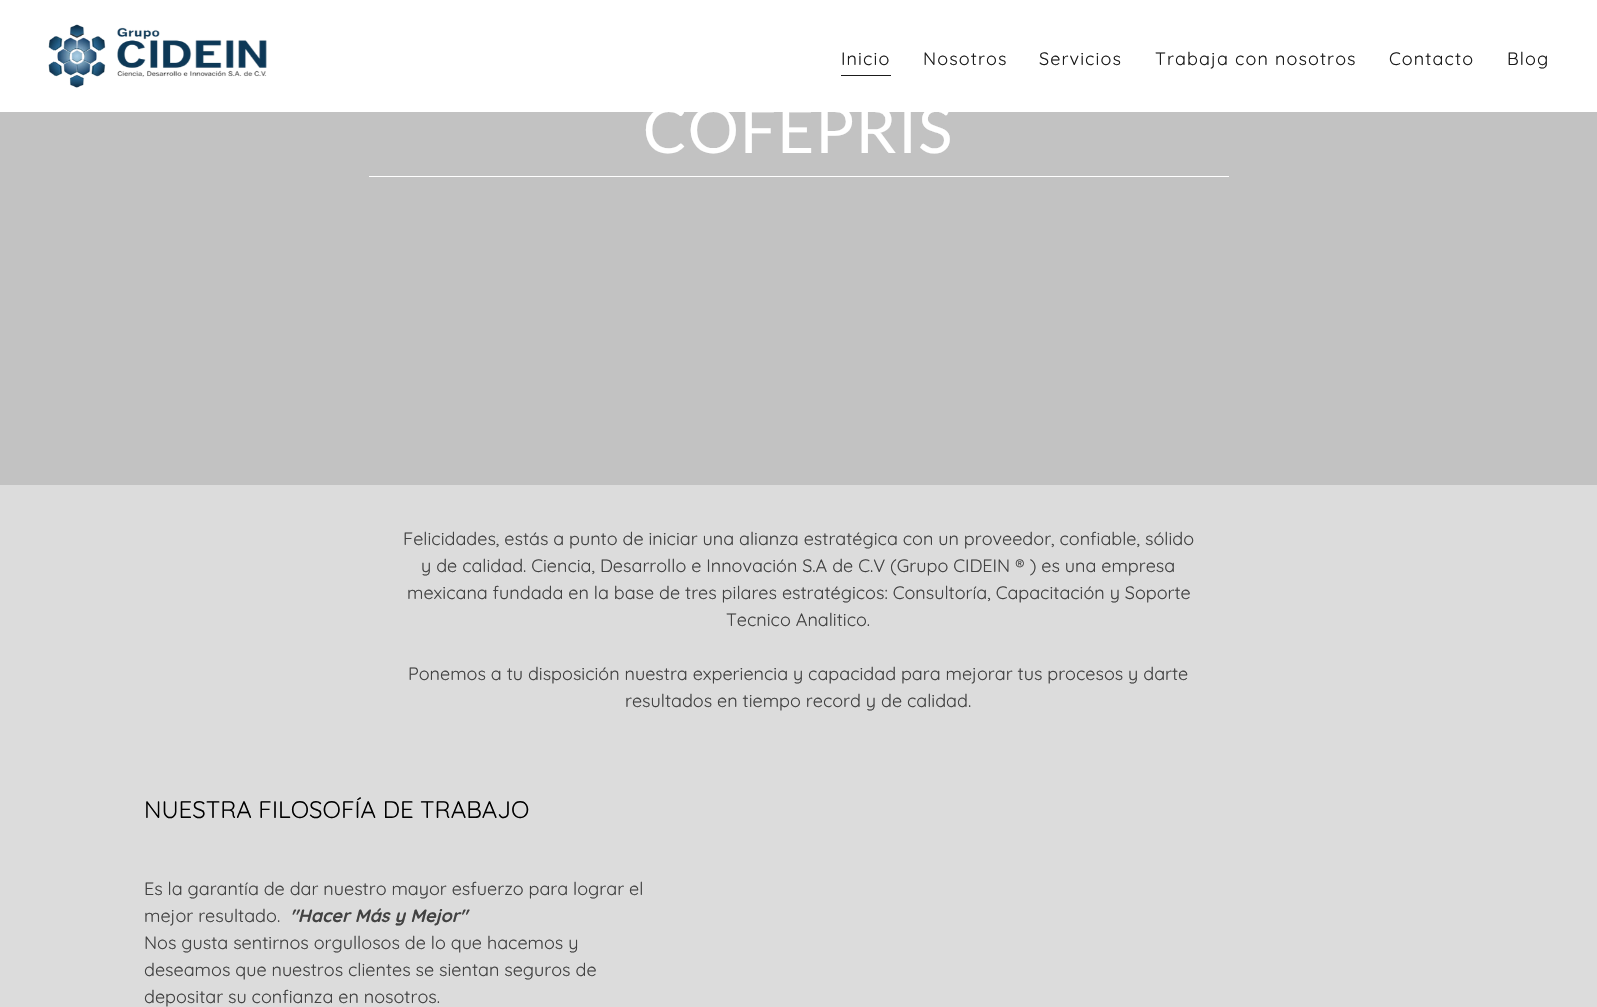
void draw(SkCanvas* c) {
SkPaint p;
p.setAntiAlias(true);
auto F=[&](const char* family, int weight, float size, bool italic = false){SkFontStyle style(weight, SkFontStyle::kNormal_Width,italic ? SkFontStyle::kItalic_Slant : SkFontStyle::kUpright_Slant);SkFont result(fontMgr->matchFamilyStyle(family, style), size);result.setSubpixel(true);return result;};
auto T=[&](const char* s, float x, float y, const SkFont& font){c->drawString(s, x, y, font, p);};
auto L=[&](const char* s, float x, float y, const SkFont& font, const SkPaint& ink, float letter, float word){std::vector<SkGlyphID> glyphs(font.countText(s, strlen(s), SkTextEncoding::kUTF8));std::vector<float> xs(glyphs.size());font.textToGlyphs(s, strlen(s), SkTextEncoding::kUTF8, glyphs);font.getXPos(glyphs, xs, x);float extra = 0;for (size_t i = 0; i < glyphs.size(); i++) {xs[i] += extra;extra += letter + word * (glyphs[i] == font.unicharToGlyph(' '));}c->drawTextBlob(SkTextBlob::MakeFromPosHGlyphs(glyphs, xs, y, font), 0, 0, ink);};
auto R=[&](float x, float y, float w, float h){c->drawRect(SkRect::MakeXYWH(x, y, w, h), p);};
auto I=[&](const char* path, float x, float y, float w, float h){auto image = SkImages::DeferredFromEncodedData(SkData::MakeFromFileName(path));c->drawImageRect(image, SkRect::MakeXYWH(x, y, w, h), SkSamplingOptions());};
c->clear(0xffdcdcdc);
p.setColor(0xffffffff);
R(0,0,1597,112);
I("1.png",48,24,219,64);
p.setColor(0xff1b1b1b);
R(841,75,50,1);
auto f1 = F("Quicksand",400,18);
L("Inicio",841,65,f1,p,1.1,0);
L("Nosotros",923,65,f1,p,1.1,0);
L("Servicios",1039,65,f1,p,1.1,0);
L("Trabaja con nosotros",1155,65,f1,p,1.1,0);
L("Contacto",1389,65,f1,p,1.1,0);
L("Blog",1507,65,f1,p,1.1,0);
p.setColor(0xffc2c2c2);
R(0,112,1597,373);
p.setColor(0xffffffff);
R(369,176,860,1);
auto f2 = F("Lato",400,64);
L("COFEPRIS",643,153,f2,p,1,0);
p.setColor(0xff424242);
T("Felicidades, estás a punto de iniciar una alianza estratégica con un proveedor, confiable, sólido",403,545,f1);
T("y de calidad. Ciencia, Desarrollo e Innovación S.A de C.V (Grupo CIDEIN ® ) es una empresa",421,572,f1);
T("mexicana fundada en la base de tres pilares estratégicos: Consultoría, Capacitación y Soporte",407,599,f1);
T("Tecnico Analitico.",726,626,f1);
T("Ponemos a tu disposición nuestra experiencia y capacidad para mejorar tus procesos y darte",408,680,f1);
T("resultados en tiempo record y de calidad.",625,707,f1);
auto f3 = F("Quicksand",400,24);
p.setColor(0xff000000);
T("NUESTRA FILOSOFÍA DE TRABAJO",144,818,f3);
p.setColor(0xff424242);
T("Es la garantía de dar nuestro mayor esfuerzo para lograr el",144,895,f1);
T("mejor resultado.",144,922,f1);
auto f4 = F("Quicksand",700,18,true);
T("\"Hacer Más y Mejor\"",290,922,f4);
T("Nos gusta sentirnos orgullosos de lo que hacemos y",144,949,f1);
T("deseamos que nuestros clientes se sientan seguros de",144,976,f1);
T("depositar su confianza en nosotros.",144,1003,f1);
}
